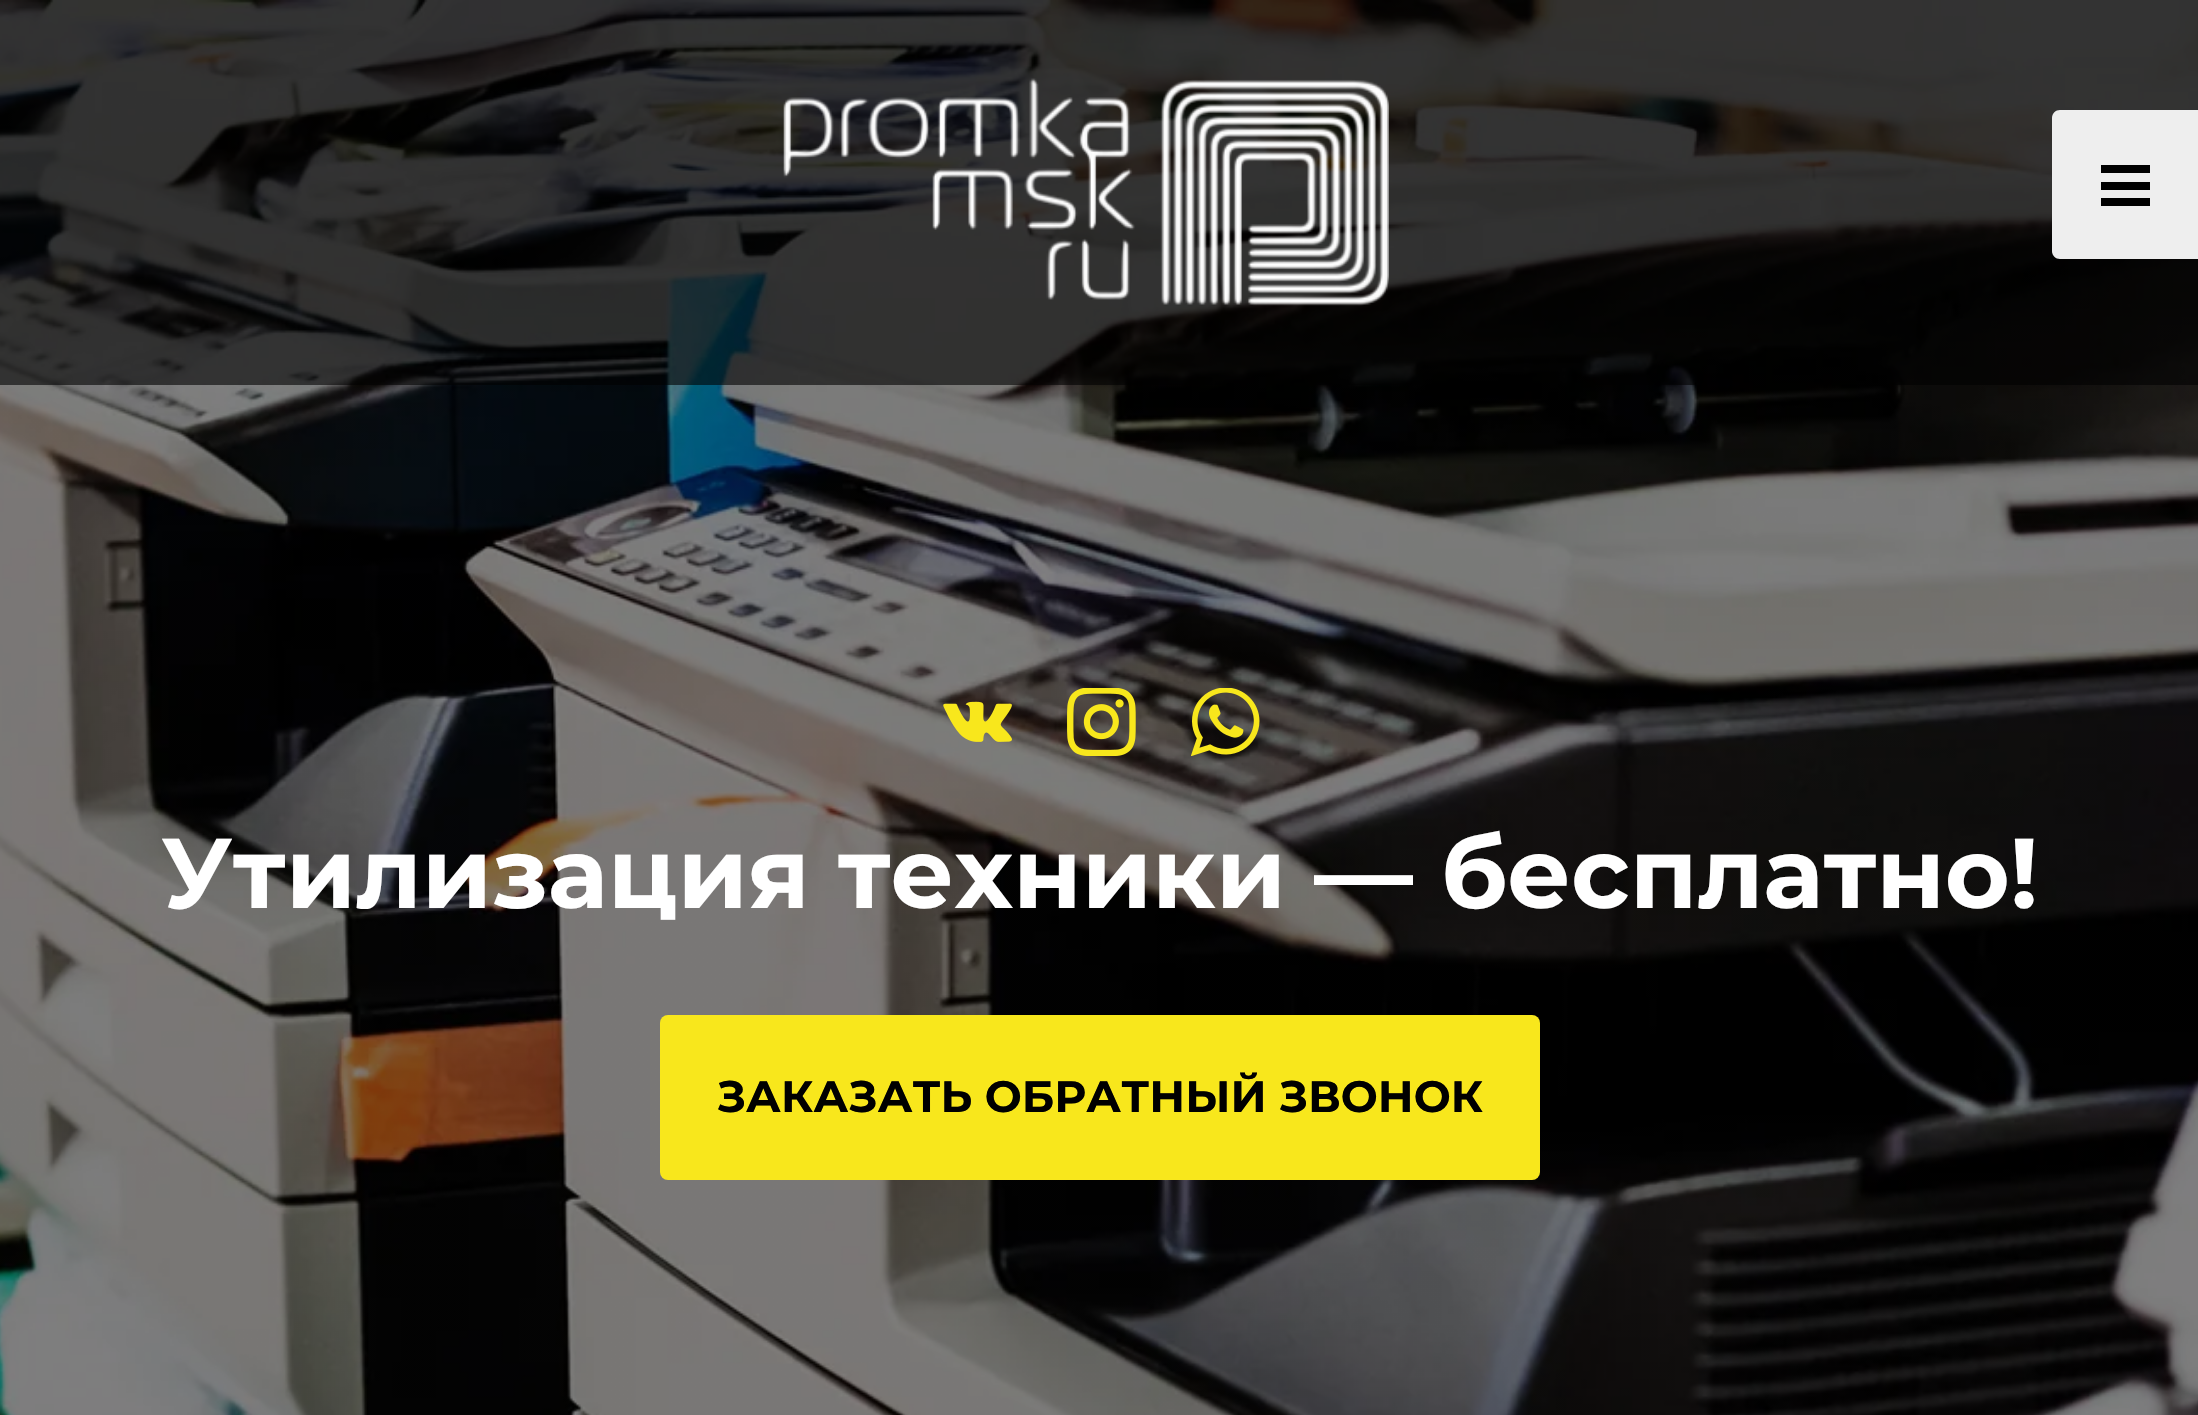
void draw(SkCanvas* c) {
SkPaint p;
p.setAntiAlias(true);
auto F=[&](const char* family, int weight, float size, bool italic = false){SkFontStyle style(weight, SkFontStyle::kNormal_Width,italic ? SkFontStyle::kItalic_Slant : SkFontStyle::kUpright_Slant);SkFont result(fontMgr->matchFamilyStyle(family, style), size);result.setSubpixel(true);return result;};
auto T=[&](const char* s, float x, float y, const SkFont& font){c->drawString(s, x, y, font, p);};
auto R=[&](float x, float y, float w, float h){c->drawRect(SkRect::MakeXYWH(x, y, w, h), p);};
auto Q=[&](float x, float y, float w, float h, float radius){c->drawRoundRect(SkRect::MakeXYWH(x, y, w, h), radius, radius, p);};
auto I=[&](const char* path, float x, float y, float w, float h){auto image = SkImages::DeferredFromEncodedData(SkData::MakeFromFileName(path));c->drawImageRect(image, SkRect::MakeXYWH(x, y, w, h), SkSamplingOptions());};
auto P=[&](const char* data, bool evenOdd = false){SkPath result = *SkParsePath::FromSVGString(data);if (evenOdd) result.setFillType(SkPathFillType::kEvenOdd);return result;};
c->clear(0xffffffff);
I("1.png",0,0,2198,1415);
p.setColor(0x99000000);
R(0,0,2198,385);
p.setColor(0xffeeeeee);
c->drawPath(P("M2060 110h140v149h-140c-4.5 0-8-3.5-8-8v-133c0-4.5 3.5-8 8-8z"),p);
p.setColor(0xff000000);
c->drawPath(P("M2101 206v-8h49v8zm0-24h49v8h-49zm0-17h49v8h-49z",true),p);
I("2.png",783,78,606,228);
I("3.png",943,701,69,41);
I("4.png",1067,688,69,68);
I("5.png",1191,688,69,68);
auto f1 = F("Montserrat",700,99);
p.setColor(0xffffffff);
T("Утилизация техники — бесплатно!",161,908,f1);
p.setColor(0xfff8e71c);
Q(660,1015,880,165,8);
auto f2 = F("Montserrat",700,44);
p.setColor(0xff000000);
T("ЗАКАЗАТЬ ОБРАТНЫЙ ЗВОНОК",717,1112,f2);
}
